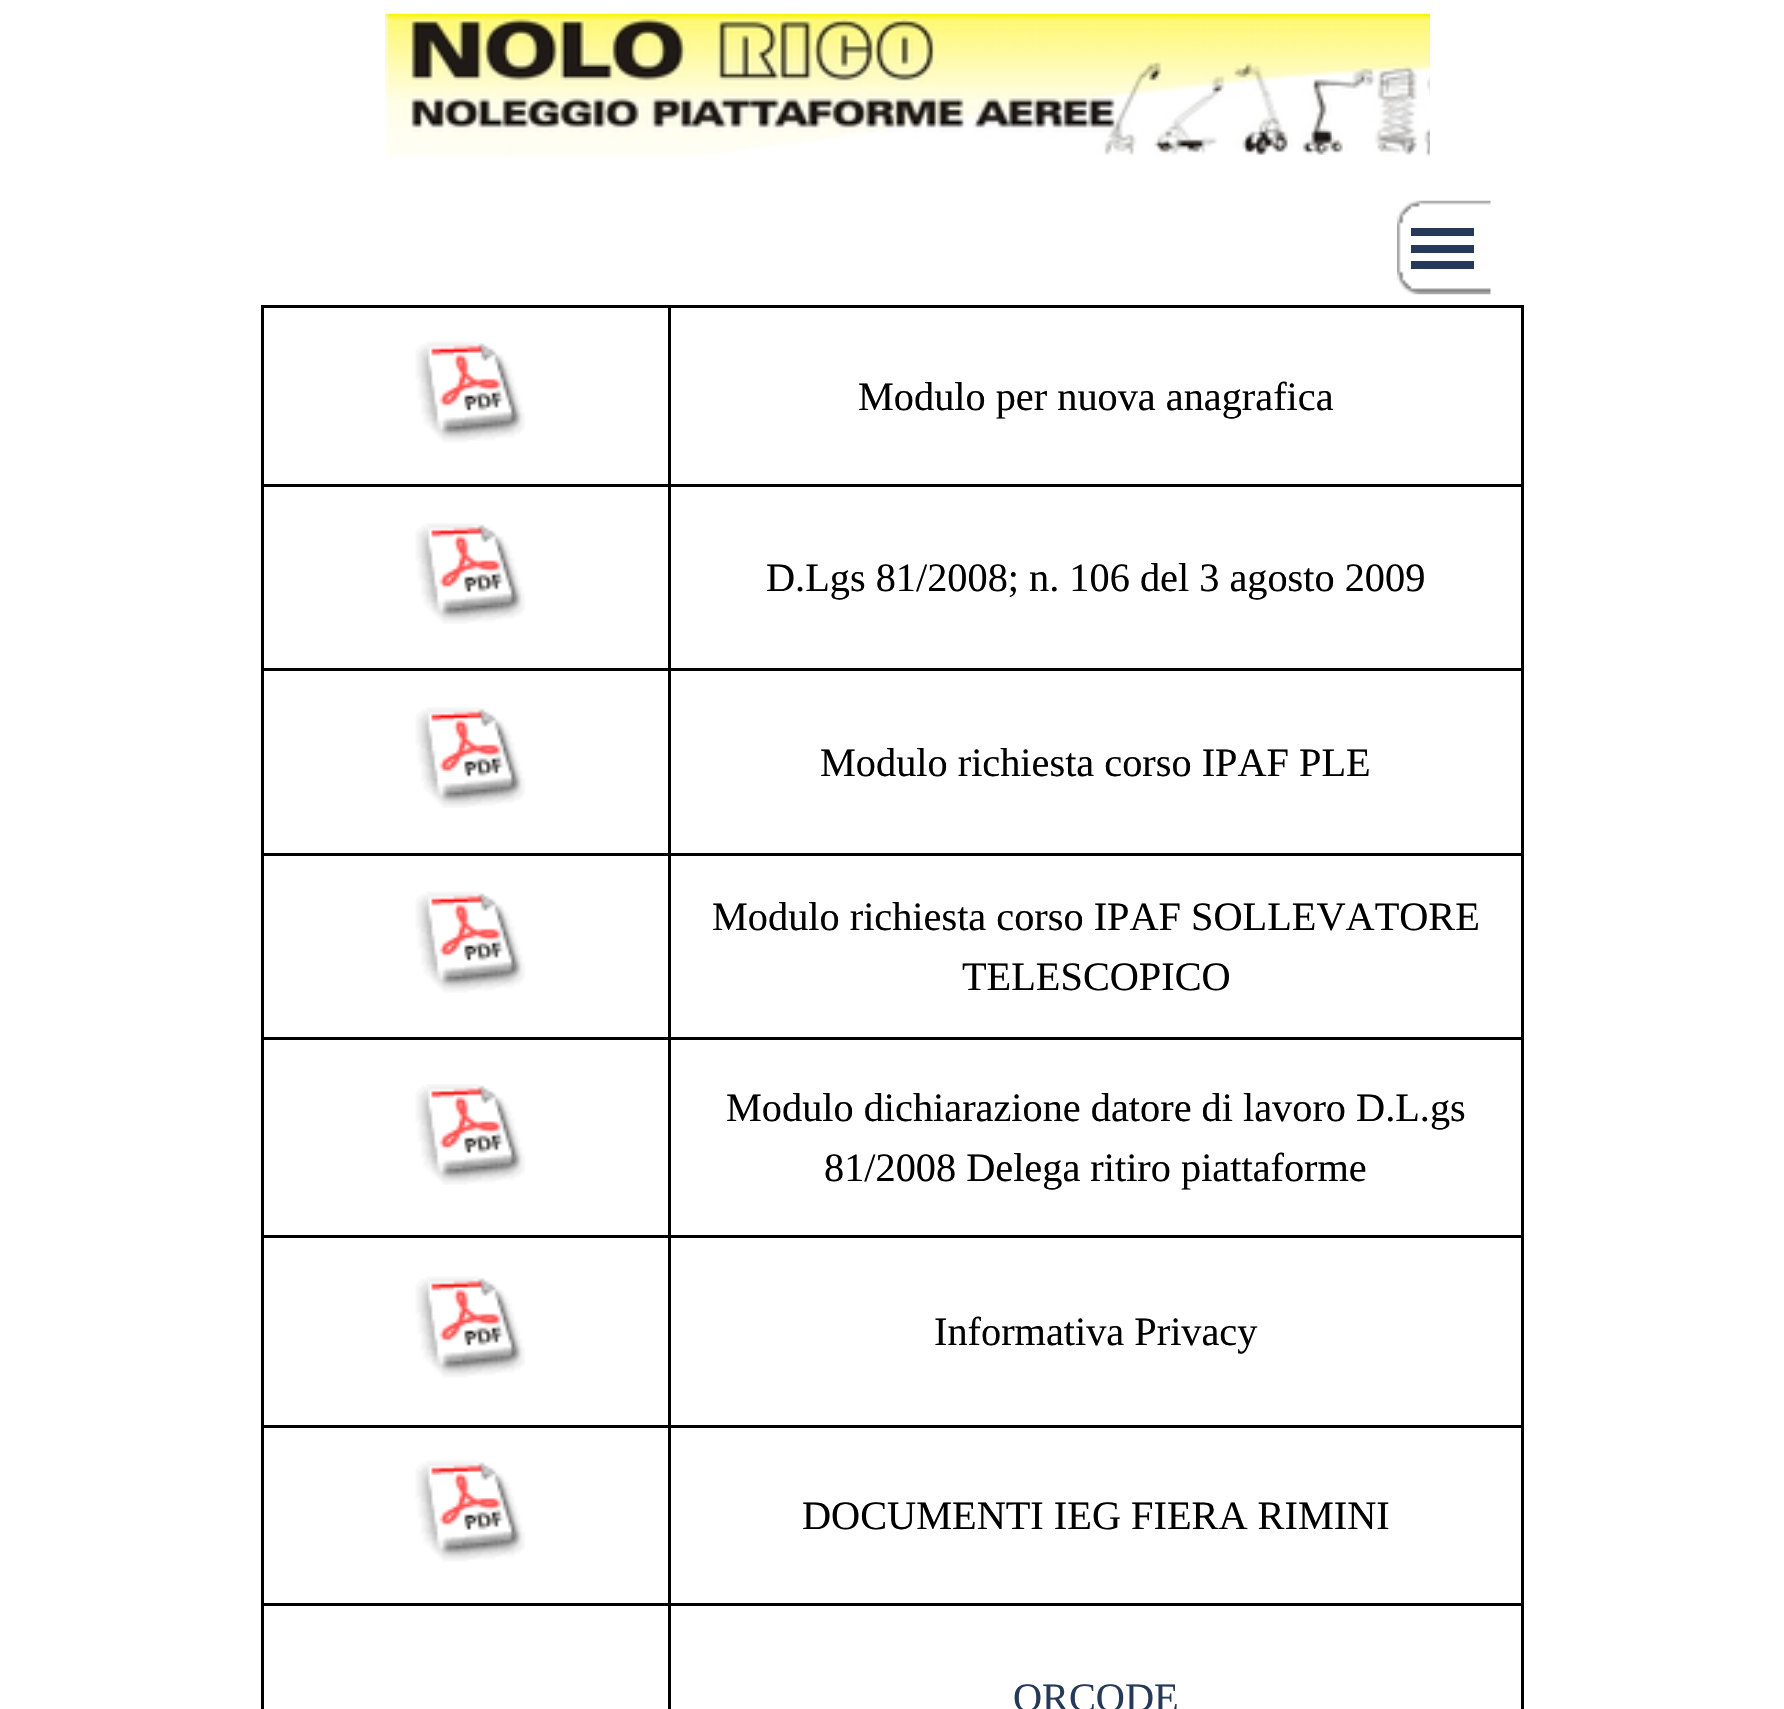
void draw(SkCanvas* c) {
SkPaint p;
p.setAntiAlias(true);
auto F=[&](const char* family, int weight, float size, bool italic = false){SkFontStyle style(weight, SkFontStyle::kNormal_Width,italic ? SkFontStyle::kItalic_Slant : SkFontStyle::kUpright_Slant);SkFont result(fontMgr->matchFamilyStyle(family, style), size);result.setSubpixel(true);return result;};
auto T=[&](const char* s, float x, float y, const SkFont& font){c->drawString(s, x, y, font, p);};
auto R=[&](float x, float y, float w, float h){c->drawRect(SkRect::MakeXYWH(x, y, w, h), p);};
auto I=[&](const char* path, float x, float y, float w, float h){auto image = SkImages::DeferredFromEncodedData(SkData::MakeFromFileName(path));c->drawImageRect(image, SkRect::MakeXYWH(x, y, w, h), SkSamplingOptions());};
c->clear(0xffffffff);
I("1.png",385,13,1045,144);
I("2.png",1397,200,94,95);
p.setColor(0xff253a58);
R(1411,228,63,8);
R(1411,245,63,8);
R(1411,261,63,8);
p.setColor(0xff000000);
R(668,305,856,3);
R(668,484,856,3);
R(668,668,856,3);
R(668,853,856,3);
R(668,1037,856,3);
R(668,1235,856,3);
R(668,1425,856,3);
R(668,1603,856,3);
R(668,1603,3,106);
R(261,1603,410,3);
R(668,1425,3,181);
R(261,1425,410,3);
R(668,1235,3,192);
R(261,1235,410,3);
R(668,1037,3,201);
R(261,1037,410,3);
R(668,853,3,187);
R(261,853,410,3);
R(668,668,3,187);
R(261,668,410,3);
R(668,484,3,187);
R(261,484,410,3);
R(668,305,3,182);
R(261,305,410,3);
R(261,1603,3,106);
R(261,1425,3,181);
R(261,1235,3,192);
R(261,1037,3,201);
R(261,853,3,187);
R(261,668,3,187);
R(261,484,3,187);
R(261,305,3,182);
I("3.png",415,341,110,102);
R(1521,1603,3,106);
R(1521,1425,3,181);
R(1521,1235,3,192);
R(1521,1037,3,201);
R(1521,853,3,187);
R(1521,668,3,187);
R(1521,484,3,187);
R(1521,305,3,182);
auto f1 = F("Liberation Serif",400,40.3);
T("Modulo per nuova anagrafica",858,410,f1);
I("4.png",415,523,110,101);
T("D.Lgs 81/2008; n. 106 del 3 agosto 2009",766,591,f1);
I("5.png",415,707,110,101);
T("Modulo richiesta corso IPAF PLE",820,776,f1);
I("3.png",415,891,110,102);
T("Modulo richiesta corso IPAF SOLLEVATORE",712,930,f1);
T("TELESCOPICO",962,990,f1);
I("4.png",415,1084,110,101);
T("Modulo dichiarazione datore di lavoro D.L.gs",726,1121,f1);
T("81/2008 Delega ritiro piattaforme",824,1181,f1);
I("3.png",415,1276,110,102);
T("Informativa Privacy",934,1345,f1);
I("6.png",415,1460,110,102);
T("DOCUMENTI IEG FIERA RIMINI",802,1529,f1);
p.setColor(0xff253a58);
T("QRCODE",1013,1711,f1);
}
